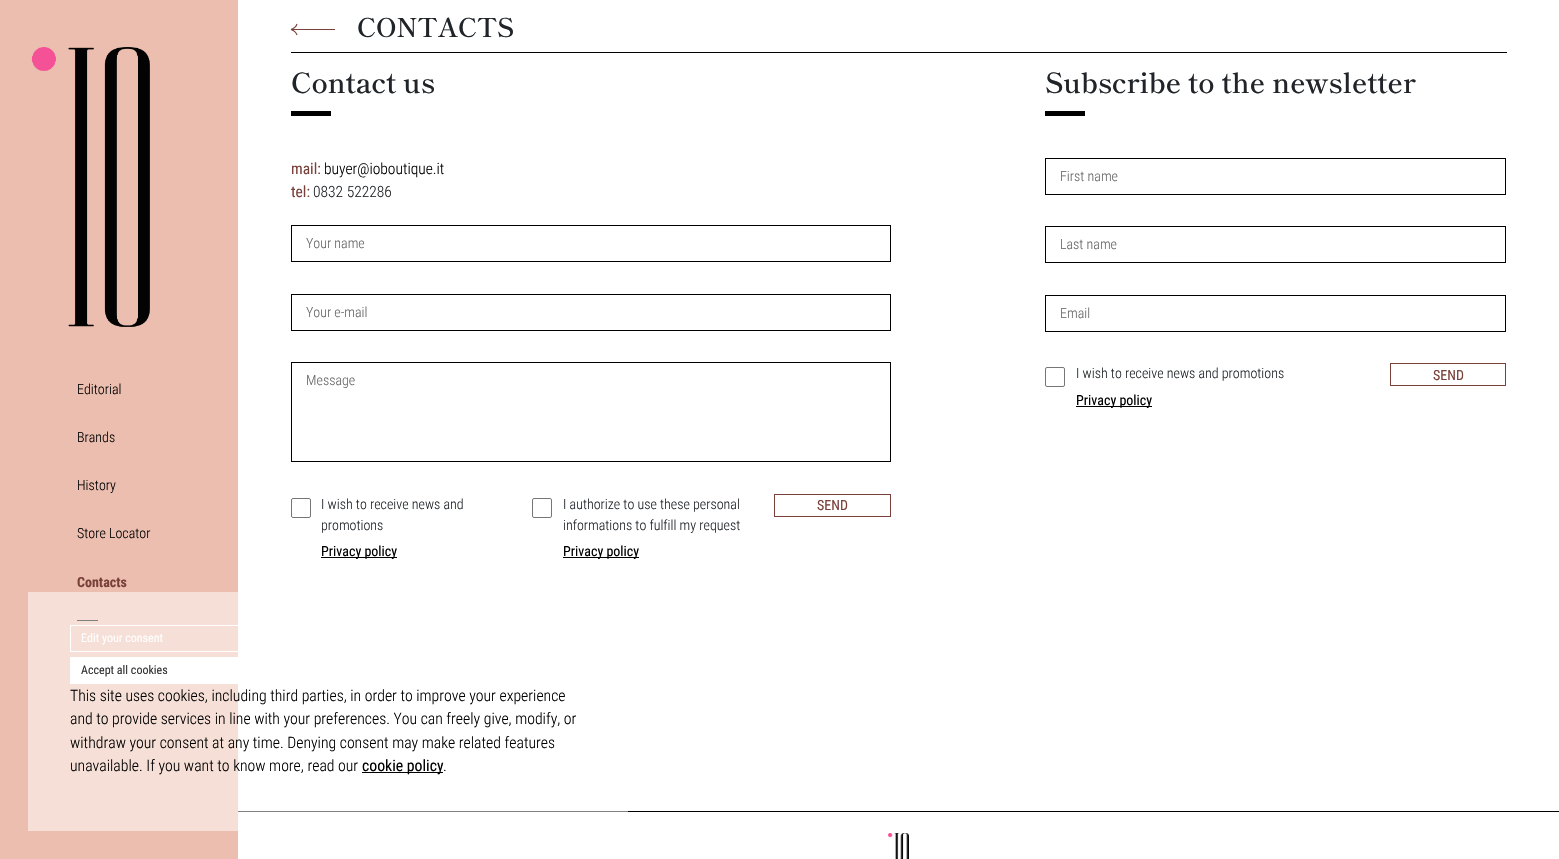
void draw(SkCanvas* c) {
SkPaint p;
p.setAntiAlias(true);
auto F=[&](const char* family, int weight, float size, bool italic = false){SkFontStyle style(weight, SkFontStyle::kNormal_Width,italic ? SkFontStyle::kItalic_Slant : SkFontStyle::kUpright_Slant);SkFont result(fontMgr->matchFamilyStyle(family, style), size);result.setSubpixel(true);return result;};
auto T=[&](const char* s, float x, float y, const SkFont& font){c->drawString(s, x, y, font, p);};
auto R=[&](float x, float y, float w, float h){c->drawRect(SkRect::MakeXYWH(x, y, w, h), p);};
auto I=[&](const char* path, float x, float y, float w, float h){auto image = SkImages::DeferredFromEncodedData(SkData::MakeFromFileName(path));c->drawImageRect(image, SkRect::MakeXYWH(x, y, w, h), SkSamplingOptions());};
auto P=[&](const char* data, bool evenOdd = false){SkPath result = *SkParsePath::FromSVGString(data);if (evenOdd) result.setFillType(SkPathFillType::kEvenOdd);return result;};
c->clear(0xffffffff);
p.setColor(0xffebbeaf);
R(0,0,238,859);
p.setColor(0xfff5dfd7);
R(28,592,210,239);
I("1.png",31,47,119,280);
auto f1 = F("Roboto Condensed",300,14);
p.setColor(0xff000000);
T("Editorial",77,394,f1);
T("Brands",77,442,f1);
T("History",77,490,f1);
T("Store Locator",77,538,f1);
auto f2 = F("Roboto Condensed",700,14);
p.setColor(0xff794039);
T("Contacts",77,587,f2);
p.setColor(0xff808080);
R(77,620,21,1);
p.setColor(0xff000000);
R(291,52,1216,1);
p.setColor(0xff794039);
R(291,29,44,1);
p.setStroke(true);
p.setStrokeWidth(1.1);
c->drawPath(P("M291 29.5c1.5-.5 5-2.5 6-5.5m-6 5.5c1.5 .5 5 2.5 6 5.5"),p);
auto f3 = F("Shippori Mincho",600,26);
p.setStroke(false);
p.setColor(0xff212529);
T("CONTACTS",357,37,f3);
auto f4 = F("Shippori Mincho",600,28);
T("Contact us",291,93,f4);
p.setColor(0xff000000);
R(291,111,40,5);
auto f5 = F("Roboto Condensed",400,15.5);
p.setColor(0xff794039);
T("mail:",291,174,f5);
auto f6 = F("Roboto Condensed",300,15.5);
p.setColor(0xff000000);
T("buyer@ioboutique.it",324,174,f6);
p.setColor(0xff794039);
T("tel:",291,197,f5);
p.setColor(0xff212529);
T("0832 522286",313,197,f6);
p.setStroke(true);
p.setStrokeWidth(1);
p.setColor(0xff000000);
c->drawRect(SkRect::MakeXYWH(291.5,225.5,599,36),p);
p.setStroke(false);
p.setColor(0xff666666);
T("Your name",306,248,f1);
p.setStroke(true);
p.setColor(0xff000000);
c->drawRect(SkRect::MakeXYWH(291.5,294.5,599,36),p);
p.setStroke(false);
p.setColor(0xff666666);
T("Your e-mail",306,317,f1);
p.setStroke(true);
p.setColor(0xff000000);
c->drawRect(SkRect::MakeXYWH(291.5,362.5,599,99),p);
p.setStroke(false);
p.setColor(0xff666666);
T("Message",306,385,f1);
p.setStroke(true);
p.setColor(0xff767676);
c->drawRoundRect(SkRect::MakeXYWH(291.5,498.5,19,19),1.5,1.5,p);
p.setStroke(false);
p.setColor(0xff212529);
T("I wish to receive news and",321,509,f1);
T("promotions",321,530,f1);
p.setColor(0xff000000);
R(321,557,76,1);
auto f7 = F("Roboto Condensed",400,14);
T("Privacy policy",321,556,f7);
p.setStroke(true);
p.setColor(0xff767676);
c->drawRoundRect(SkRect::MakeXYWH(532.5,498.5,19,19),1.5,1.5,p);
p.setStroke(false);
p.setColor(0xff212529);
T("I authorize to use these personal",563,509,f1);
T("informations to fulfill my request",563,530,f1);
p.setColor(0xff000000);
R(563,557,76,1);
T("Privacy policy",563,556,f7);
p.setStroke(true);
p.setColor(0xff794039);
c->drawRect(SkRect::MakeXYWH(774.5,494.5,116,22),p);
p.setStroke(false);
T("SEND",817,510,f7);
p.setColor(0xff212529);
T("Subscribe to the newsletter",1045,93,f4);
p.setColor(0xff000000);
R(1045,111,40,5);
p.setStroke(true);
c->drawRect(SkRect::MakeXYWH(1045.5,158.5,460,36),p);
p.setStroke(false);
p.setColor(0xff666666);
T("First name",1060,181,f1);
p.setStroke(true);
p.setColor(0xff000000);
c->drawRect(SkRect::MakeXYWH(1045.5,226.5,460,36),p);
p.setStroke(false);
p.setColor(0xff666666);
T("Last name",1060,249,f1);
p.setStroke(true);
p.setColor(0xff000000);
c->drawRect(SkRect::MakeXYWH(1045.5,295.5,460,36),p);
p.setStroke(false);
p.setColor(0xff666666);
T("Email",1060,318,f1);
p.setStroke(true);
p.setColor(0xff767676);
c->drawRoundRect(SkRect::MakeXYWH(1045.5,367.5,19,19),1.5,1.5,p);
p.setStroke(false);
p.setColor(0xff212529);
T("I wish to receive news and promotions",1076,378,f1);
p.setColor(0xff000000);
R(1076,406,76,1);
T("Privacy policy",1076,405,f7);
p.setStroke(true);
p.setColor(0xff794039);
c->drawRect(SkRect::MakeXYWH(1390.5,363.5,115,22),p);
p.setStroke(false);
T("SEND",1433,380,f7);
p.setStroke(true);
p.setColor(0xffffffff);
c->drawRect(SkRect::MakeXYWH(70.5,625.5,515,26),p);
auto f8 = F("Roboto Condensed",400,12);
p.setStroke(false);
T("Edit your consent",81,642,f8);
R(70,657,168,27);
p.setColor(0xff333333);
T("Accept all cookies",81,674,f8);
auto f9 = F("Roboto Condensed",300,15.75);
p.setColor(0xff000000);
T("This site uses cookies, including third parties, in order to improve your experience",70,701,f9);
T("and to provide services in line with your preferences. You can freely give, modify, or",70,724,f9);
T("withdraw your consent at any time. Denying consent may make related features",70,748,f9);
T("unavailable. If you want to know more, read our",70,771,f9);
R(362,772,81,1);
auto f10 = F("Roboto Condensed",400,15.75);
T("cookie policy",362,771,f10);
T(".",443,771,f9);
R(628,811,931,1);
p.setColor(0xff808080);
R(238,811,390,1);
I("2.png",888,833,21,26);
}
